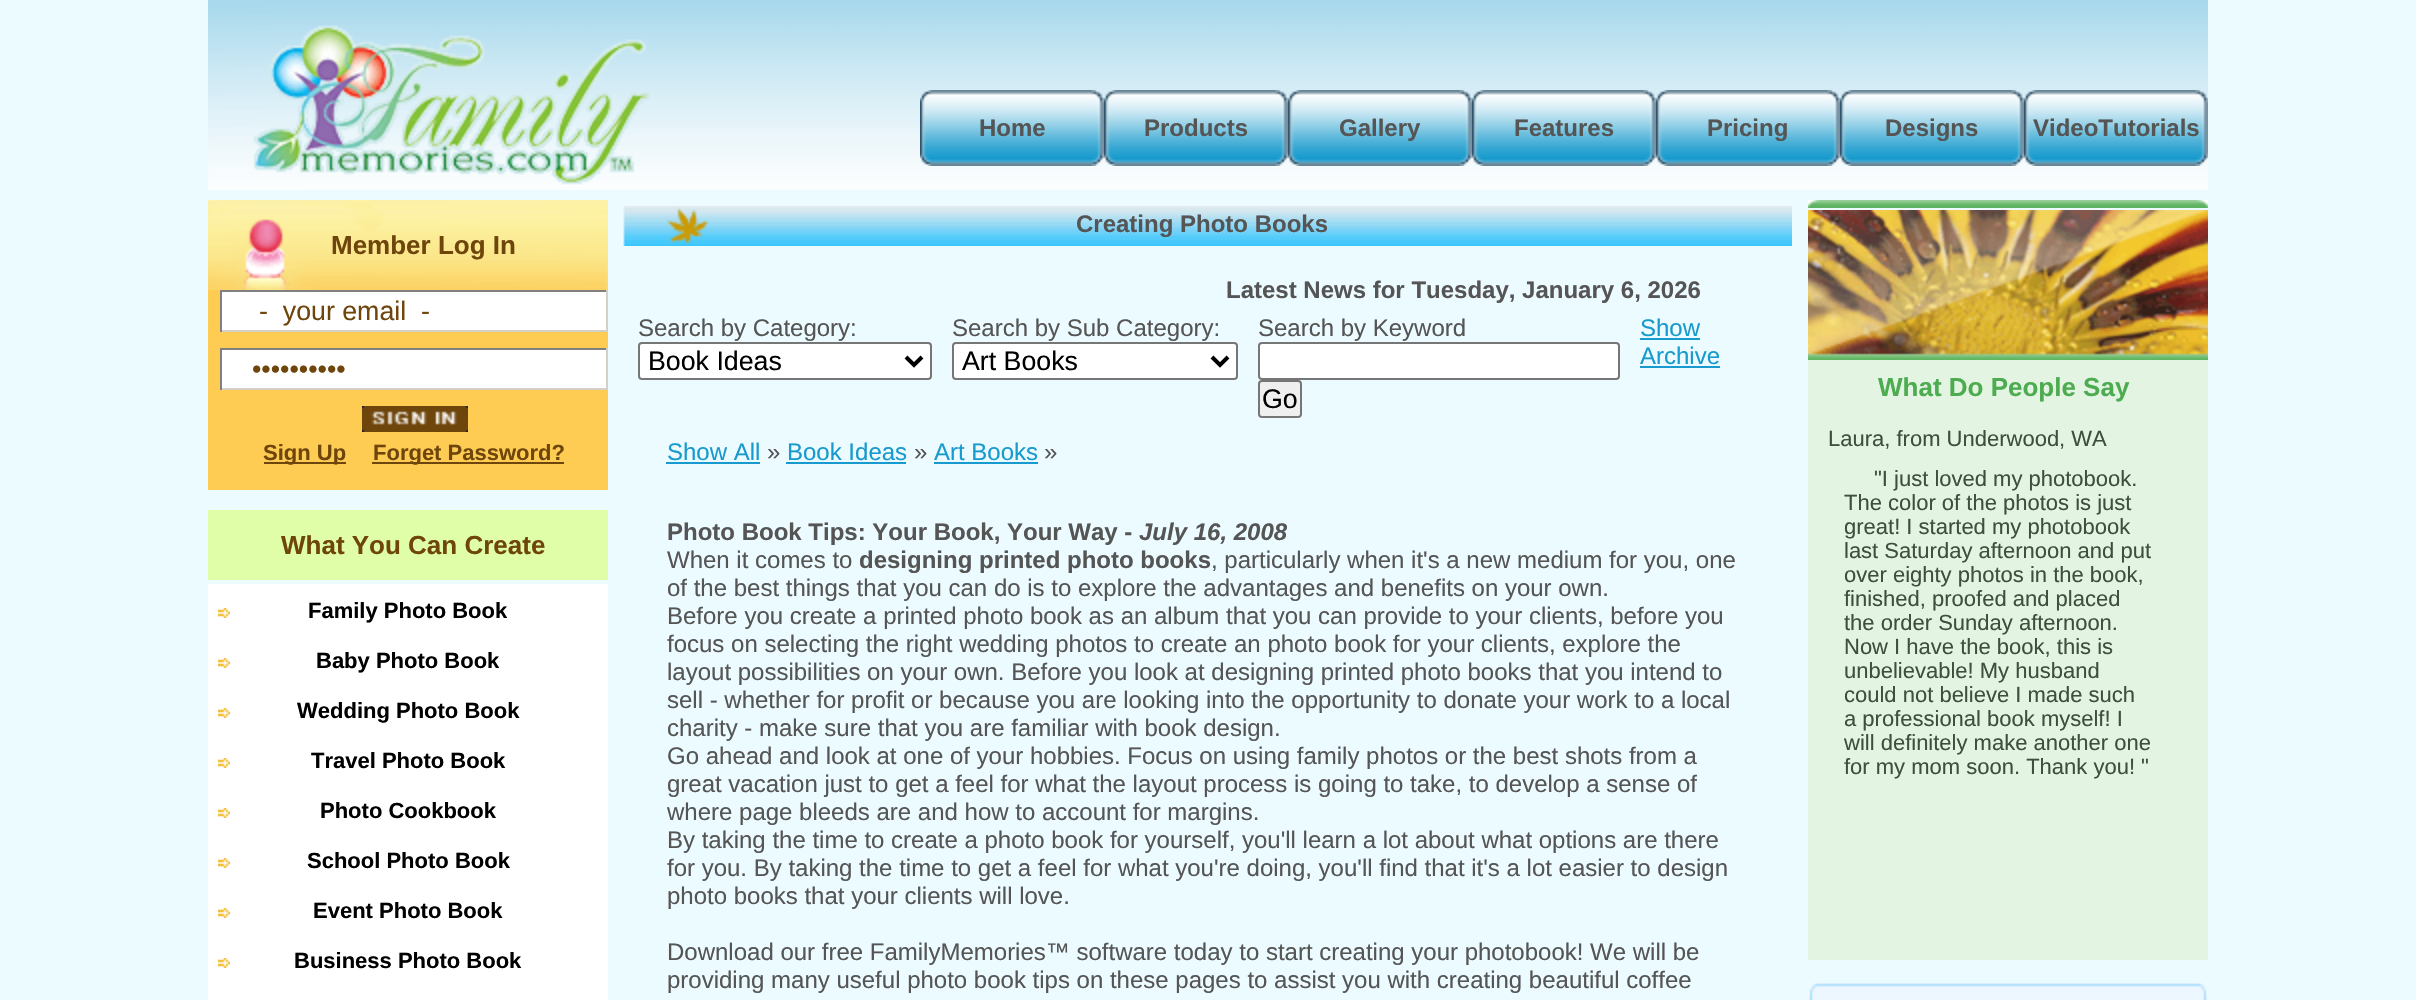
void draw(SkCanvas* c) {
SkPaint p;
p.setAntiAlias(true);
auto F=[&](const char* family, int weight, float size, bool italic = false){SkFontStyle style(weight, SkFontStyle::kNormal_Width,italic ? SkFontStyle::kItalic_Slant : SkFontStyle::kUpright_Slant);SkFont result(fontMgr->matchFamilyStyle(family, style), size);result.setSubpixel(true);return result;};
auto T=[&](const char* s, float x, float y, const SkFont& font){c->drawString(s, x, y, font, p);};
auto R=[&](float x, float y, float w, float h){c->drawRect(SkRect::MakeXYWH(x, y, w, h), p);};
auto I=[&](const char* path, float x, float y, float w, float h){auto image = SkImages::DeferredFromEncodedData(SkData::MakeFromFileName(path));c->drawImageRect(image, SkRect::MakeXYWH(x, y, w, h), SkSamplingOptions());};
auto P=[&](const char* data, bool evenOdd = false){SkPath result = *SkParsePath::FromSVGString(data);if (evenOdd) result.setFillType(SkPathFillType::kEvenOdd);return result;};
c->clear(0xffecfbff);
I("1.png",208,0,2000,190);
I("2.png",253,25,397,160);
I("3.png",920,90,184,76);
auto f1 = F("Liberation Sans",700,24);
p.setColor(0xff555555);
T("Home",979,136,f1);
I("3.png",1104,90,184,76);
T("Products",1144,136,f1);
I("3.png",1288,90,184,76);
T("Gallery",1339,136,f1);
I("3.png",1472,90,184,76);
T("Features",1514,136,f1);
I("3.png",1656,90,184,76);
T("Pricing",1707,136,f1);
I("3.png",1840,90,184,76);
T("Designs",1885,136,f1);
I("3.png",2024,90,184,76);
T("VideoTutorials",2033,136,f1);
I("4.png",208,200,400,90);
auto f2 = F("Liberation Sans",700,26);
p.setColor(0xff6e450b);
T("Member Log In",331,254,f2);
p.setColor(0xffffcc53);
R(208,290,400,200);
p.setColor(0xffffffff);
R(222,292,384,38);
p.setColor(0xff808080);
R(220,290,388,2);
p.setColor(0xffd4d0c8);
R(606,290,2,42);
R(220,330,388,2);
p.setColor(0xff808080);
R(220,290,2,42);
auto f3 = F("Liberation Sans",400,26.75);
p.setColor(0xff6e450b);
T("-  your email  -",259,320,f3);
p.setColor(0xffffffff);
R(222,350,384,38);
p.setColor(0xff808080);
R(220,348,388,2);
p.setColor(0xffd4d0c8);
R(606,348,2,42);
R(220,388,388,2);
p.setColor(0xff808080);
R(220,348,2,42);
p.setColor(0xff6e450b);
T("••••••••••",252,378,f3);
I("5.png",362,406,106,26);
R(264,462,82,2);
auto f4 = F("Liberation Sans",700,22);
T("Sign Up",263,460,f4);
R(372,462,192,2);
T("Forget Password?",373,460,f4);
p.setColor(0xffe0fda7);
R(208,510,400,70);
p.setColor(0xff6e450b);
T("What You Can Create",281,554,f2);
p.setColor(0xffffffff);
R(208,584,400,416);
I("6.png",218,608,12,10);
p.setColor(0xff000000);
T("Family Photo Book",308,618,f4);
I("6.png",218,658,12,10);
T("Baby Photo Book",316,668,f4);
I("6.png",218,708,12,10);
T("Wedding Photo Book",297,718,f4);
I("6.png",218,758,12,10);
T("Travel Photo Book",311,768,f4);
I("6.png",218,808,12,10);
T("Photo Cookbook",320,818,f4);
I("6.png",218,858,12,10);
T("School Photo Book",307,868,f4);
I("6.png",218,908,12,10);
T("Event Photo Book",313,918,f4);
I("6.png",218,958,12,10);
T("Business Photo Book",294,968,f4);
I("7.png",623,206,1169,40);
p.setColor(0xff555555);
T("Creating Photo Books",1076,232,f1);
T("Latest News for Tuesday, January 6, 2026",1226,298,f1);
auto f5 = F("Liberation Sans",400,24);
T("Search by Category:",638,336,f5);
p.setColor(0xffffffff);
c->drawRoundRect(SkRect::MakeXYWH(639,343,292,36),3,3,p);
p.setStroke(true);
p.setStrokeWidth(2);
p.setColor(0xff767676);
c->drawRoundRect(SkRect::MakeXYWH(639,343,292,36),3,3,p);
p.setStrokeWidth(4);
p.setColor(0xff000000);
c->drawPath(P("M906 357l8 8l8-8"),p);
p.setStroke(false);
T("Book Ideas",648,370,f3);
p.setColor(0xff555555);
T("Search by Sub Category:",952,336,f5);
p.setColor(0xffffffff);
c->drawRoundRect(SkRect::MakeXYWH(953,343,284,36),3,3,p);
p.setStroke(true);
p.setStrokeWidth(2);
p.setColor(0xff767676);
c->drawRoundRect(SkRect::MakeXYWH(953,343,284,36),3,3,p);
p.setStrokeWidth(4);
p.setColor(0xff000000);
c->drawPath(P("M1212 357l8 8l8-8"),p);
p.setStroke(false);
T("Art Books",962,370,f3);
p.setColor(0xff555555);
T("Search by Keyword",1258,336,f5);
p.setColor(0xffffffff);
c->drawRoundRect(SkRect::MakeXYWH(1259,343,360,36),3,3,p);
p.setStroke(true);
p.setStrokeWidth(2);
p.setColor(0xff767676);
c->drawRoundRect(SkRect::MakeXYWH(1259,343,360,36),3,3,p);
p.setStroke(false);
p.setColor(0xffefefef);
c->drawRoundRect(SkRect::MakeXYWH(1259,381,42,36),3,3,p);
p.setStroke(true);
p.setColor(0xff767676);
c->drawRoundRect(SkRect::MakeXYWH(1259,381,42,36),3,3,p);
p.setStroke(false);
p.setColor(0xff000000);
T("Go",1262,408,f3);
p.setColor(0xff179acd);
T("Show",1640,336,f5);
R(1640,338,60,2);
T("Archive",1640,364,f5);
R(1640,366,80,2);
T("Show All",667,460,f5);
R(666,462,94,2);
p.setColor(0xff555555);
T("»",767,460,f5);
p.setColor(0xff179acd);
T("Book Ideas",787,460,f5);
R(786,462,120,2);
p.setColor(0xff555555);
T("»",914,460,f5);
p.setColor(0xff179acd);
T("Art Books",934,460,f5);
R(934,462,104,2);
p.setColor(0xff555555);
T("»",1044,460,f5);
T("Photo Book Tips: Your Book, Your Way -",667,540,f1);
auto f6 = F("Liberation Sans",700,24,true);
T("July 16, 2008",1139,540,f6);
T("When it comes to",667,568,f5);
T("designing printed photo books",859,568,f1);
T(", particularly when it's a new medium for you, one",1211,568,f5);
T("of the best things that you can do is to explore the advantages and benefits on your own.",667,596,f5);
T("Before you create a printed photo book as an album that you can provide to your clients, before you",667,624,f5);
T("focus on selecting the right wedding photos to create an photo book for your clients, explore the",667,652,f5);
T("layout possibilities on your own. Before you look at designing printed photo books that you intend to",667,680,f5);
T("sell - whether for profit or because you are looking into the opportunity to donate your work to a local",667,708,f5);
T("charity - make sure that you are familiar with book design.",667,736,f5);
T("Go ahead and look at one of your hobbies. Focus on using family photos or the best shots from a",667,764,f5);
T("great vacation just to get a feel for what the layout process is going to take, to develop a sense of",667,792,f5);
T("where page bleeds are and how to account for margins.",667,820,f5);
T("By taking the time to create a photo book for yourself, you'll learn a lot about what options are there",667,848,f5);
T("for you. By taking the time to get a feel for what you're doing, you'll find that it's a lot easier to design",667,876,f5);
T("photo books that your clients will love.",667,904,f5);
T("Download our free FamilyMemories™ software today to start creating your photobook! We will be",667,960,f5);
T("providing many useful photo book tips on these pages to assist you with creating beautiful coffee",667,988,f5);
I("8.png",1808,200,400,8);
I("9.png",1808,210,400,150);
p.setColor(0xffe3f4e3);
R(1808,360,400,600);
p.setColor(0xff4dab50);
T("What Do People Say",1878,396,f2);
auto f7 = F("Liberation Sans",400,22);
p.setColor(0xff3e4f3e);
T("Laura, from Underwood, WA",1828,446,f7);
T("\"I just loved my photobook.",1874,486,f7);
T("The color of the photos is just",1844,510,f7);
T("great! I started my photobook",1844,534,f7);
T("last Saturday afternoon and put",1844,558,f7);
T("over eighty photos in the book,",1844,582,f7);
T("finished, proofed and placed",1844,606,f7);
T("the order Sunday afternoon.",1844,630,f7);
T("Now I have the book, this is",1844,654,f7);
T("unbelievable! My husband",1844,678,f7);
T("could not believe I made such",1844,702,f7);
T("a professional book myself! I",1844,726,f7);
T("will definitely make another one",1844,750,f7);
T("for my mom soon. Thank you! \"",1844,774,f7);
I("10.png",1808,983,400,17);
}
